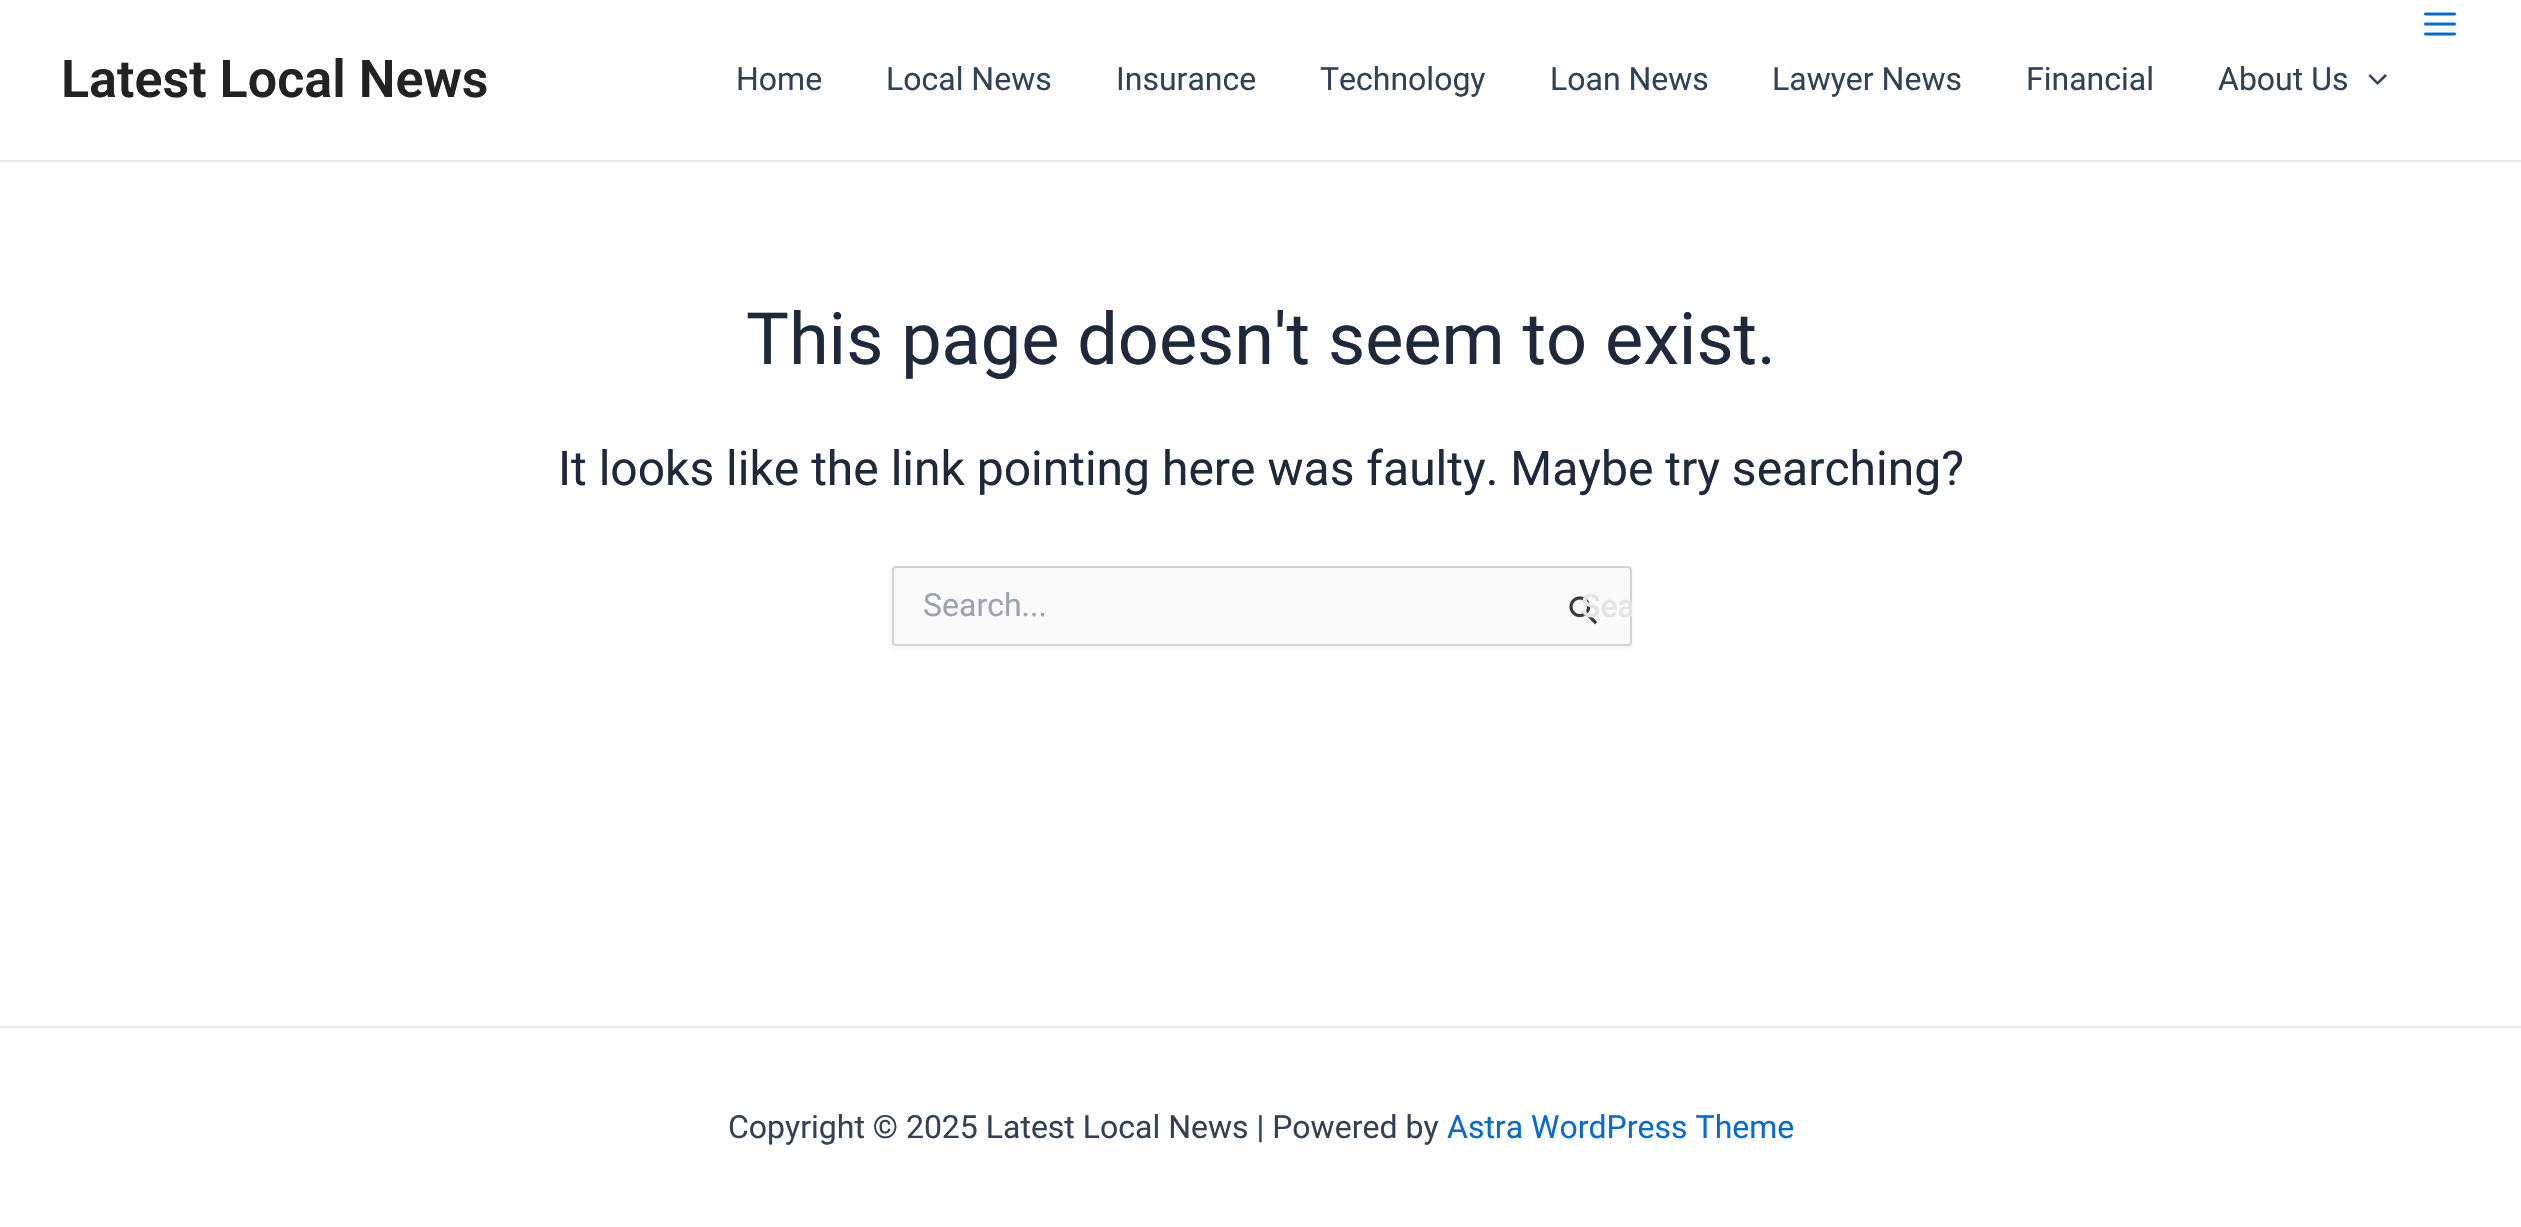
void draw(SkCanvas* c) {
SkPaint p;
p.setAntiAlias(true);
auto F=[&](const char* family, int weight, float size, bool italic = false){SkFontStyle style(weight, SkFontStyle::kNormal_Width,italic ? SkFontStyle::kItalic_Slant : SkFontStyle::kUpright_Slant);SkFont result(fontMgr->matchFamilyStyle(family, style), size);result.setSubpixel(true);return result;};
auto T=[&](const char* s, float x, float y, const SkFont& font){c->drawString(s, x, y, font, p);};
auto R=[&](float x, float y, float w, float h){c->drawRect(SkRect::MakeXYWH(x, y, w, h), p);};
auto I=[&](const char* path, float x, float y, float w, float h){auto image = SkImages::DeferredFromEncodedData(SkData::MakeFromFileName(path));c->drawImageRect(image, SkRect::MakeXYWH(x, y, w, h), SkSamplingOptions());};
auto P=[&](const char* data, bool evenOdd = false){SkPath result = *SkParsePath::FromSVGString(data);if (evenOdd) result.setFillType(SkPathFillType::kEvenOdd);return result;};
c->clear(0xffffffff);
p.setColor(0xffeaeaea);
R(0,160,2521,2);
auto f1 = F("Roboto",600,52);
p.setColor(0xff222222);
T("Latest Local News",61,97,f1);
I("1.png",2424,12,32,24);
auto f2 = F("Roboto",400,32);
p.setColor(0xff334155);
T("Home",736,90,f2);
T("Local News",886,90,f2);
T("Insurance",1116,90,f2);
T("Technology",1320,90,f2);
T("Loan News",1550,90,f2);
T("Lawyer News",1772,90,f2);
T("Financial",2026,90,f2);
T("About Us",2218,90,f2);
c->drawPath(P("M2368.5 76l9 9l9.5-9l-2-2l-7.5 7.5l-7.5-7.5z"),p);
auto f3 = F("Roboto",400,72);
p.setColor(0xff1e293b);
T("This page doesn't seem to exist.",746,364,f3);
auto f4 = F("Roboto",400,48);
T("It looks like the link pointing here was faulty. Maybe try searching?",558,485,f4);
p.setColor(0x0d000000);
p.setMaskFilter(SkMaskFilter::MakeBlur(kNormal_SkBlurStyle, 2));
c->drawRoundRect(SkRect::MakeXYWH(892,568,740,80),4,4,p);
p.setMaskFilter(nullptr);
p.setColor(0xfffafafa);
c->drawRoundRect(SkRect::MakeXYWH(893,567,738,78),3,3,p);
p.setStroke(true);
p.setStrokeWidth(2);
p.setColor(0xffd1d5db);
c->drawRoundRect(SkRect::MakeXYWH(893,567,738,78),3,3,p);
p.setStroke(false);
p.setColor(0xff9ca3af);
T("Search...",923,616,f2);
I("2.png",1569,596,29,29);
c->save();
c->clipPath(P("M1546 566h82c2 0 4 2 4 4v76c0 2-2 4-4 4h-82c-2 0-4-2-4-4v-76c0-2 2-4 4-4z"),true);
auto f5 = F("Roboto",500,32);
p.setColor(0xffe4e4e4);
T("Sea",1581,617,f5);
c->restore();
p.setColor(0xffeaeaea);
R(0,1026,2521,2);
p.setColor(0xff334155);
T("Copyright © 2025 Latest Local News | Powered by",728,1138,f2);
p.setColor(0xff046bd2);
T("Astra WordPress Theme",1447,1138,f2);
}
